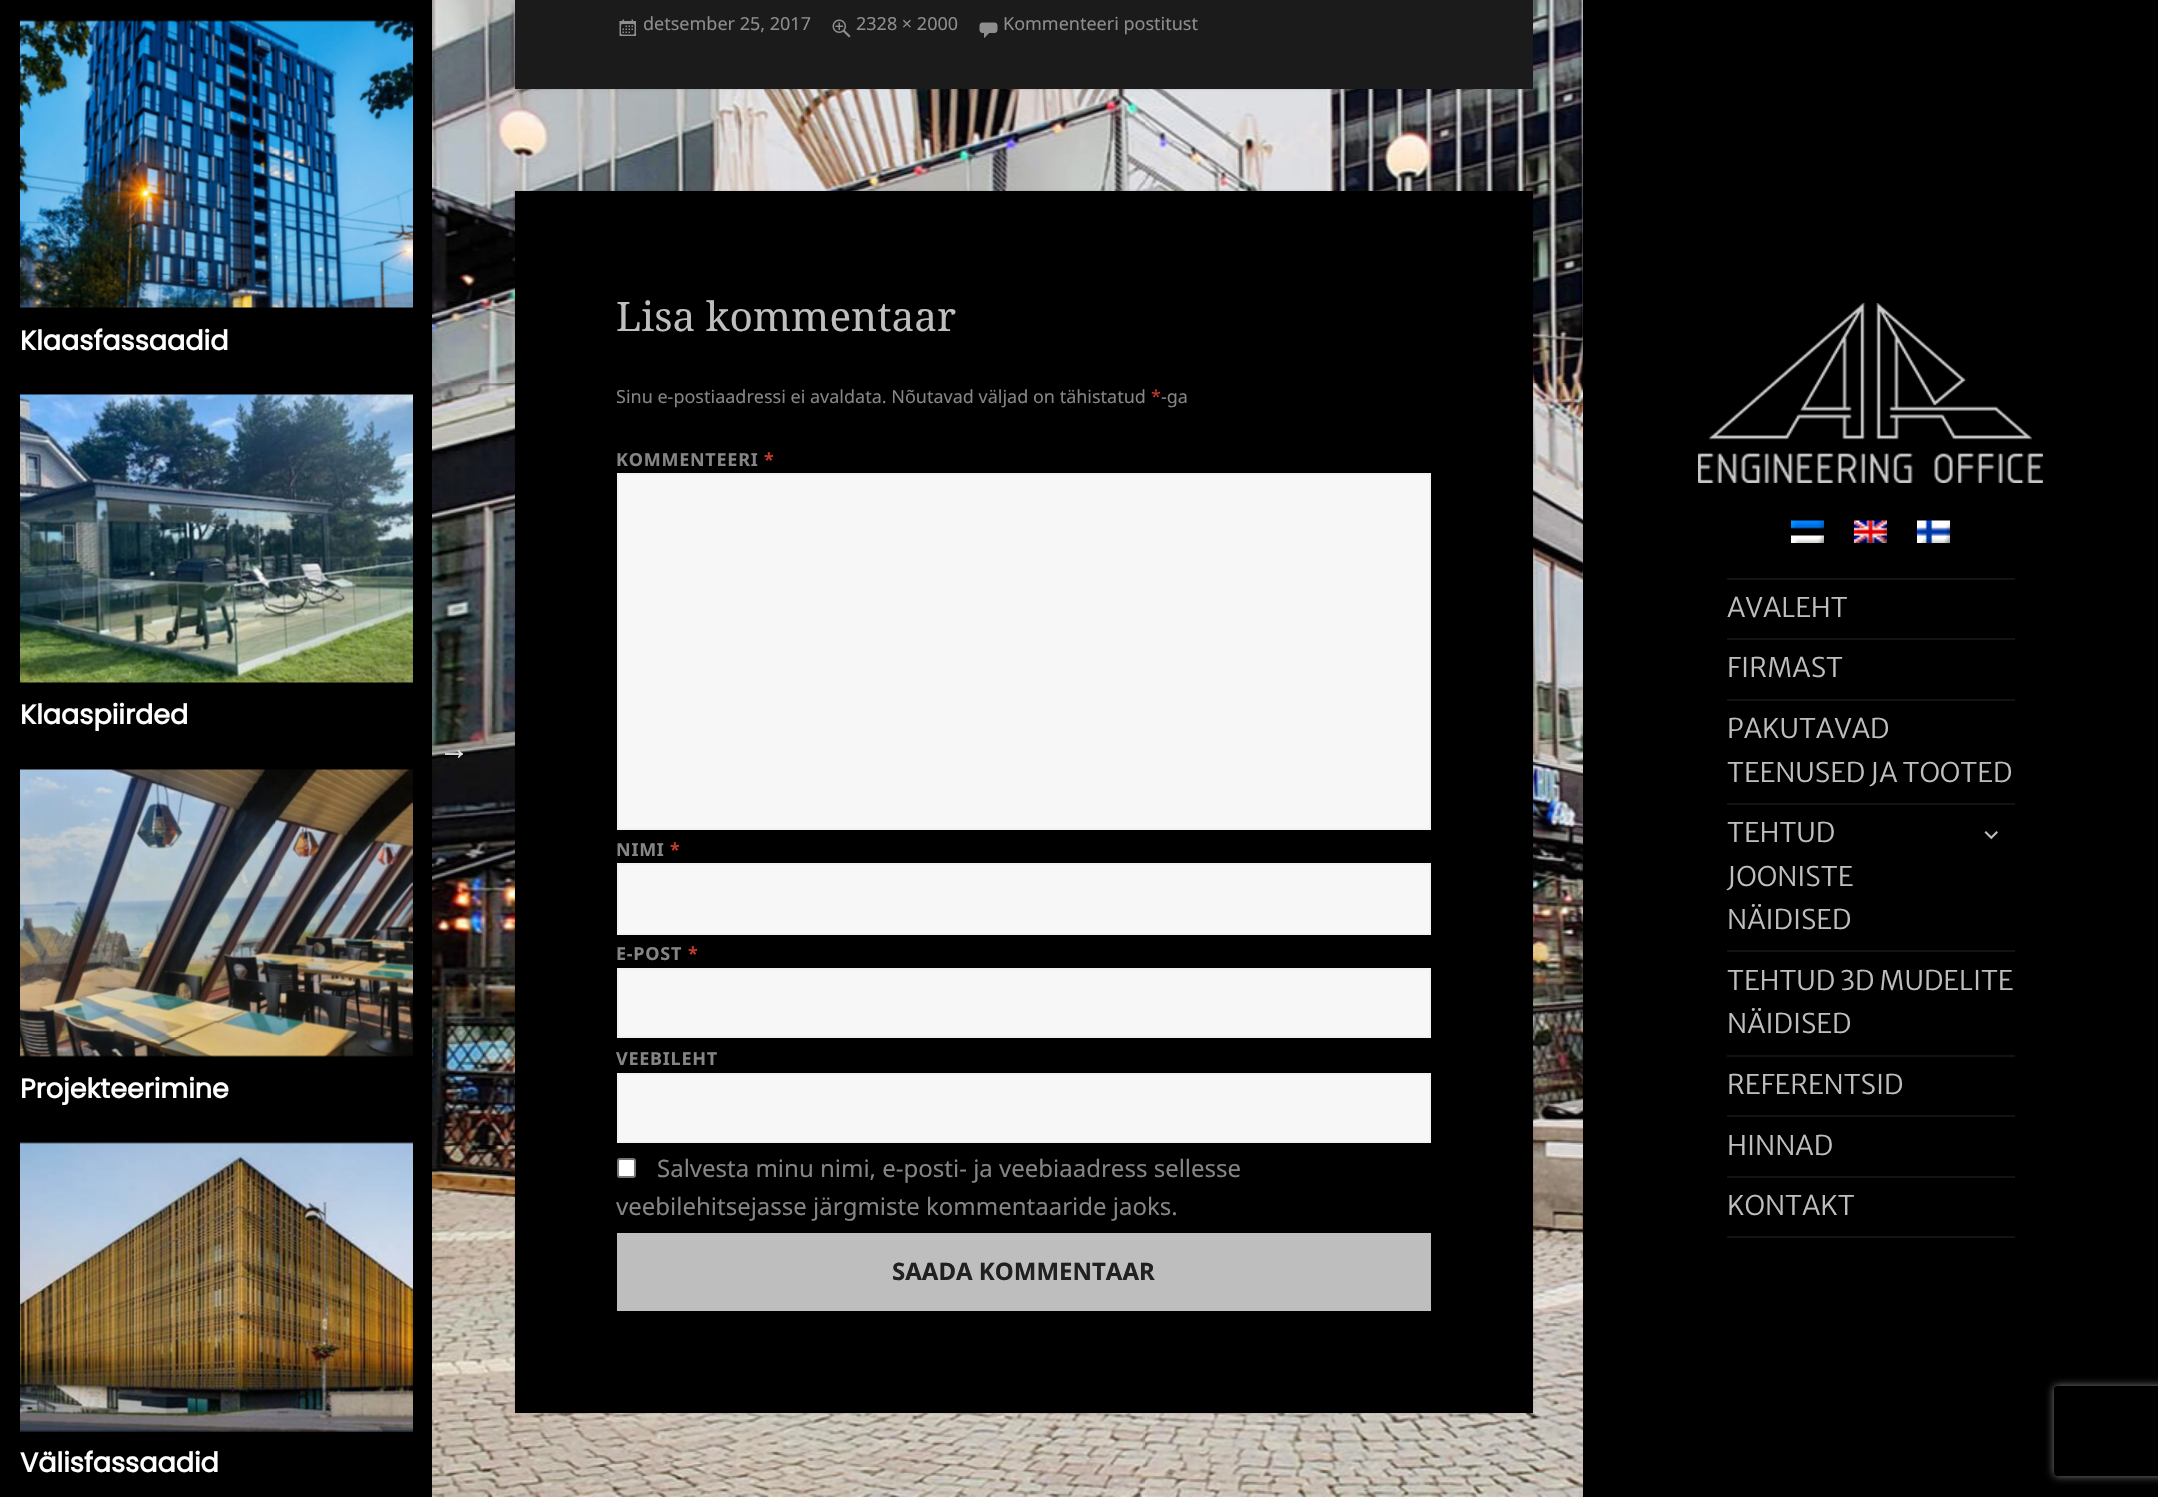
void draw(SkCanvas* c) {
SkPaint p;
p.setAntiAlias(true);
auto F=[&](const char* family, int weight, float size, bool italic = false){SkFontStyle style(weight, SkFontStyle::kNormal_Width,italic ? SkFontStyle::kItalic_Slant : SkFontStyle::kUpright_Slant);SkFont result(fontMgr->matchFamilyStyle(family, style), size);result.setSubpixel(true);return result;};
auto T=[&](const char* s, float x, float y, const SkFont& font){c->drawString(s, x, y, font, p);};
auto L=[&](const char* s, float x, float y, const SkFont& font, const SkPaint& ink, float letter, float word){std::vector<SkGlyphID> glyphs(font.countText(s, strlen(s), SkTextEncoding::kUTF8));std::vector<float> xs(glyphs.size());font.textToGlyphs(s, strlen(s), SkTextEncoding::kUTF8, glyphs);font.getXPos(glyphs, xs, x);float extra = 0;for (size_t i = 0; i < glyphs.size(); i++) {xs[i] += extra;extra += letter + word * (glyphs[i] == font.unicharToGlyph(' '));}c->drawTextBlob(SkTextBlob::MakeFromPosHGlyphs(glyphs, xs, y, font), 0, 0, ink);};
auto R=[&](float x, float y, float w, float h){c->drawRect(SkRect::MakeXYWH(x, y, w, h), p);};
auto I=[&](const char* path, float x, float y, float w, float h){auto image = SkImages::DeferredFromEncodedData(SkData::MakeFromFileName(path));c->drawImageRect(image, SkRect::MakeXYWH(x, y, w, h), SkSamplingOptions());};
auto P=[&](const char* data, bool evenOdd = false){SkPath result = *SkParsePath::FromSVGString(data);if (evenOdd) result.setFillType(SkPathFillType::kEvenOdd);return result;};
c->clear(0xffffffff);
I("1.png",432,0,1151,1497);
p.setColor(0xff000000);
R(0,0,432,1497);
I("2.png",20,20,393,288);
auto f1 = F("Poppins",700,27);
p.setColor(0xffffffff);
T("Klaasfassaadid",20,350,f1);
I("3.png",20,394,393,289);
T("Klaaspiirded",20,724,f1);
I("4.png",20,769,393,288);
T("Projekteerimine",20,1098,f1);
I("5.png",20,1142,393,290);
T("Välisfassaadid",20,1472,f1);
auto f2 = F("Liberation Serif",700,30);
p.setColor(0xffc9caca);
T("→",439,759,f2);
p.setColor(0xffe3e3e3);
T("→",439,759,f2);
p.setColor(0x26000000);
p.setMaskFilter(SkMaskFilter::MakeBlur(kNormal_SkBlurStyle, 1));
c->drawRect(SkRect::MakeXYWH(515,-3,1018,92),p);
p.setMaskFilter(nullptr);
p.setColor(0xff1b1b1b);
R(515,0,1018,89);
I("6.png",619,19,17,17);
auto f3 = F("Noto Sans",400,18);
p.setColor(0xff8d8d8d);
T("detsember 25, 2017",643,30,f3);
I("7.png",832,19,19,19);
T("2328 × 2000",856,30,f3);
I("8.png",979,22,19,16);
T("Kommenteeri postitust",1003,30,f3);
p.setColor(0x26000000);
p.setMaskFilter(SkMaskFilter::MakeBlur(kNormal_SkBlurStyle, 1));
c->drawRect(SkRect::MakeXYWH(515,191,1018,1222),p);
p.setMaskFilter(nullptr);
p.setColor(0xff000000);
R(515,191,1018,1222);
auto f4 = F("Noto Serif",400,40.5);
p.setColor(0xffbebebe);
T("Lisa kommentaar",616,331,f4);
p.setColor(0xff858585);
T("Sinu e-postiaadressi ei avaldata. Nõutavad väljad on tähistatud",616,403,f3);
p.setColor(0xffc0392b);
T("*",1151,403,f3);
p.setColor(0xff858585);
T("-ga",1161,403,f3);
auto f5 = F("Noto Sans",700,18);
L("KOMMENTEERI",616,466,f5,p,.75,0);
p.setColor(0xffc0392b);
L("*",764,466,f5,p,.75,0);
p.setColor(0xfff7f7f7);
c->drawRect(SkRect::MakeXYWH(618,474,812,355),p);
p.setStroke(true);
p.setStrokeWidth(2);
p.setColor(0xfff1f1f1);
c->drawRect(SkRect::MakeXYWH(618,474,812,355),p);
p.setStroke(false);
p.setColor(0xff858585);
L("NIMI",616,856,f5,p,.75,0);
p.setColor(0xffc0392b);
L("*",670,856,f5,p,.75,0);
p.setColor(0xfff7f7f7);
c->drawRect(SkRect::MakeXYWH(618,864,812,70),p);
p.setStroke(true);
p.setColor(0xfff1f1f1);
c->drawRect(SkRect::MakeXYWH(618,864,812,70),p);
p.setStroke(false);
p.setColor(0xff858585);
L("E-POST",616,960,f5,p,.75,0);
p.setColor(0xffc0392b);
L("*",688,960,f5,p,.75,0);
p.setColor(0xfff7f7f7);
c->drawRect(SkRect::MakeXYWH(618,969,812,68),p);
p.setStroke(true);
p.setColor(0xfff1f1f1);
c->drawRect(SkRect::MakeXYWH(618,969,812,68),p);
p.setStroke(false);
p.setColor(0xff858585);
L("VEEBILEHT",616,1065,f5,p,.75,0);
p.setColor(0xfff7f7f7);
c->drawRect(SkRect::MakeXYWH(618,1074,812,68),p);
p.setStroke(true);
p.setColor(0xfff1f1f1);
c->drawRect(SkRect::MakeXYWH(618,1074,812,68),p);
p.setStroke(false);
p.setColor(0xffffffff);
c->drawRoundRect(SkRect::MakeXYWH(618,1159,17,18),2,2,p);
p.setStroke(true);
p.setColor(0xff767676);
c->drawRoundRect(SkRect::MakeXYWH(618,1159,17,18),2,2,p);
auto f6 = F("Noto Sans",400,24);
p.setStroke(false);
p.setColor(0xff858585);
T("Salvesta minu nimi, e-posti- ja veebiaadress sellesse",657,1177,f6);
T("veebilehitsejasse järgmiste kommentaaride jaoks.",616,1215,f6);
p.setColor(0xffbebebe);
R(617,1233,814,78);
auto f7 = F("Noto Sans",700,24);
p.setColor(0xff202020);
T("SAADA KOMMENTAAR",892,1280,f7);
p.setColor(0xff000000);
R(1583,0,575,1497);
I("9.png",1698,303,345,180);
I("10.png",1791,520,33,23);
I("11.png",1854,520,33,23);
I("12.png",1917,520,33,23);
p.setColor(0xff131313);
R(1727,578,288,2);
R(1727,1236,288,2);
auto f8 = F("Merriweather Sans",300,27);
p.setColor(0xffbebebe);
T("AVALEHT",1727,617,f8);
p.setColor(0xff131313);
R(1727,638,288,2);
p.setColor(0xffbebebe);
T("FIRMAST",1727,677,f8);
p.setColor(0xff131313);
R(1727,699,288,2);
p.setColor(0xffbebebe);
T("PAKUTAVAD",1727,738,f8);
T("TEENUSED JA TOOTED",1727,782,f8);
p.setColor(0xff131313);
R(1727,803,288,2);
p.setColor(0xffbebebe);
T("TEHTUD",1727,842,f8);
T("JOONISTE",1727,886,f8);
T("NÄIDISED",1727,929,f8);
I("13.png",1984,831,14,9);
p.setColor(0xff131313);
R(1727,950,288,2);
p.setColor(0xffbebebe);
T("TEHTUD 3D MUDELITE",1727,990,f8);
T("NÄIDISED",1727,1033,f8);
p.setColor(0xff131313);
R(1727,1055,288,2);
p.setColor(0xffbebebe);
T("REFERENTSID",1727,1094,f8);
p.setColor(0xff131313);
R(1727,1115,288,2);
p.setColor(0xffbebebe);
T("HINNAD",1727,1155,f8);
p.setColor(0xff131313);
R(1727,1176,288,2);
p.setColor(0xffbebebe);
T("KONTAKT",1727,1215,f8);
c->save();
c->clipPath(P("M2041 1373h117v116h-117zm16 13h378c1.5 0 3 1.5 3 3v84c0 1.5-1.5 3-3 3h-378c-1.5 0-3-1.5-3-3v-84c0-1.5 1.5-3 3-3z",true),true);
p.setColor(0xff808080);
p.setMaskFilter(SkMaskFilter::MakeBlur(kNormal_SkBlurStyle, 4));
c->drawRoundRect(SkRect::MakeXYWH(2054,1386,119,90),3,3,p);
p.setMaskFilter(nullptr);
c->restore();
}
